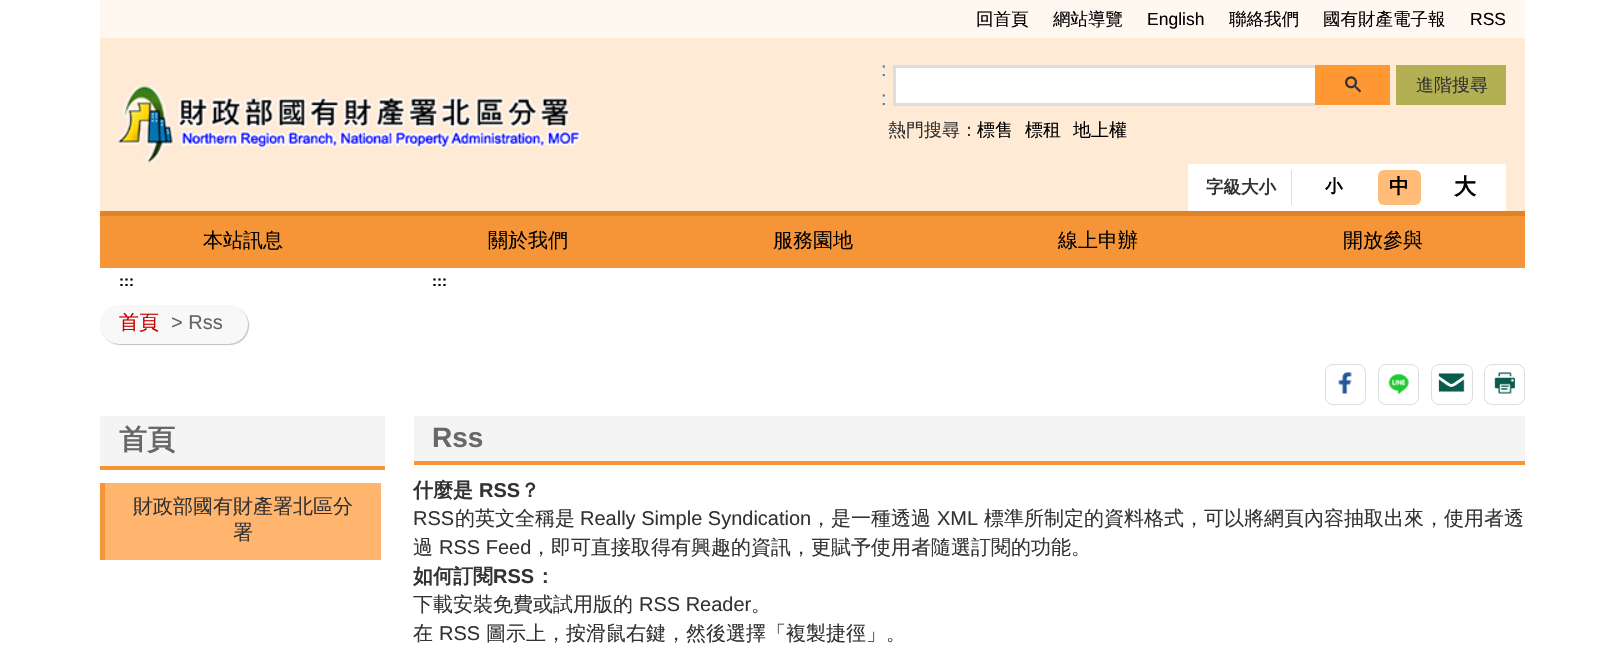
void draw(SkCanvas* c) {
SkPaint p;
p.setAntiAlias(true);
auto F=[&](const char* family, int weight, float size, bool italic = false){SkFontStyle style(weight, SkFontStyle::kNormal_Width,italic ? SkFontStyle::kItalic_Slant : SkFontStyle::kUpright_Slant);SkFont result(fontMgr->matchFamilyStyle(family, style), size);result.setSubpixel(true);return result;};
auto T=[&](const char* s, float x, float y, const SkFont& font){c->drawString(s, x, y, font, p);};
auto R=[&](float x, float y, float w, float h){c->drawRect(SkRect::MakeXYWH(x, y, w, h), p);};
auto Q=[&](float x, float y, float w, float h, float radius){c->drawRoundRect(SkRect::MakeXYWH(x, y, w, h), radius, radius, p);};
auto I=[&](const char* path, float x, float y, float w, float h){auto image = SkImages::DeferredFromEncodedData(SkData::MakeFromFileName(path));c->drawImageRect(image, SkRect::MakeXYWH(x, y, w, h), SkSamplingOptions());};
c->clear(0xffffffff);
p.setColor(0xfffff8f1);
R(100,0,1425,38);
auto f1 = F("WenQuanYi Zen Hei",500,17.5);
p.setColor(0xff000000);
T("回首頁",976,25,f1);
T("網站導覽",1053,25,f1);
auto f2 = F("Liberation Sans",400,17.5);
T("English",1147,25,f2);
T("聯絡我們",1229,25,f1);
T("國有財產電子報",1323,25,f1);
T("RSS",1470,25,f2);
p.setColor(0xffffead5);
R(100,38,1425,173);
p.setColor(0xffe08227);
R(100,211,1425,5);
I("1.png",118,86,464,77);
auto f3 = F("Liberation Sans",400,20);
p.setColor(0xff337ab7);
T(":",881,76,f3);
T(":",881,105,f3);
p.setColor(0xffffffff);
R(896,68,419,35);
p.setColor(0xffdddddd);
R(893,65,422,3);
R(893,103,422,3);
R(893,65,3,40);
p.setColor(0xffff9733);
R(1315,65,75,40);
I("2.png",1345,76,16,17);
p.setColor(0xffb2b052);
R(1396,65,110,40);
auto f4 = F("WenQuanYi Zen Hei",500,18);
p.setColor(0xff333333);
T("進階搜尋",1416,91,f4);
T("熱門搜尋：",888,136,f4);
p.setColor(0xff000000);
T("標售",977,136,f4);
T("標租",1025,136,f4);
T("地上權",1073,136,f4);
p.setColor(0xffffffff);
R(1188,164,318,47);
p.setColor(0xffdddddd);
R(1291,170,1,35);
auto f5 = F("WenQuanYi Zen Hei",700,17.5);
p.setColor(0xff333333);
T("字級大小",1206,193,f5);
p.setColor(0xff000000);
T("小",1325,192,f5);
p.setColor(0xffffbb78);
Q(1378,170,43,35,6);
auto f6 = F("WenQuanYi Zen Hei",700,20);
p.setColor(0xff000000);
T("中",1389,193,f6);
auto f7 = F("WenQuanYi Zen Hei",700,22);
T("大",1454,194,f7);
p.setColor(0xfff69537);
R(100,216,1425,52);
auto f8 = F("WenQuanYi Zen Hei",500,20);
p.setColor(0xff000000);
T("本站訊息",203,247,f8);
T("關於我們",488,247,f8);
T("服務園地",773,247,f8);
T("線上申辦",1058,247,f8);
T("開放參與",1343,247,f8);
auto f9 = F("Liberation Sans",700,15);
T(":::",119,286,f9);
p.setColor(0xfff4f4f4);
R(100,416,285,50);
p.setColor(0xfff69537);
R(100,466,285,4);
auto f10 = F("WenQuanYi Zen Hei",700,28);
p.setColor(0xff686868);
T("首頁",119,449,f10);
p.setColor(0xfff69537);
R(100,483,5,77);
p.setColor(0xffffb56d);
R(105,483,276,77);
p.setColor(0xff333333);
T("財政部國有財產署北區分",133,513,f8);
T("署",233,539,f8);
p.setColor(0xff000000);
T(":::",432,286,f9);
p.setStroke(true);
p.setStrokeWidth(1);
p.setColor(0xffdddddd);
c->drawRoundRect(SkRect::MakeXYWH(1325.5,364.5,40,40),7.5,7.5,p);
I("3.png",1338,372,14,22);
c->drawRoundRect(SkRect::MakeXYWH(1378.5,364.5,40,40),7.5,7.5,p);
I("4.png",1388,374,21,20);
c->drawRoundRect(SkRect::MakeXYWH(1431.5,364.5,41,40),7.5,7.5,p);
I("5.png",1438,373,27,19);
c->drawRoundRect(SkRect::MakeXYWH(1484.5,364.5,40,40),7.5,7.5,p);
I("6.png",1494,372,21,22);
p.setStroke(false);
p.setColor(0xfff4f4f4);
R(414,416,1111,45);
p.setColor(0xfff69537);
R(414,461,1111,4);
auto f11 = F("Liberation Sans",700,28);
p.setColor(0xff686868);
T("Rss",432,447,f11);
p.setColor(0xff333333);
T("什麼是",413,497,f6);
auto f12 = F("Liberation Sans",700,20);
T("RSS",479,497,f12);
T("？",520,497,f6);
T("RSS",413,525,f3);
T("的英文全稱是",455,525,f8);
T("Really Simple Syndication",580,525,f3);
T("，是一種透過",811,525,f8);
T("XML",937,525,f3);
T("標準所制定的資料格式，可以將網頁內容抽取出來，使用者透",984,525,f8);
T("過",413,554,f8);
T("RSS Feed",439,554,f3);
T("，即可直接取得有興趣的資訊，更賦予使用者隨選訂閱的功能。",531,554,f8);
T("如何訂閱",413,583,f6);
T("RSS",493,583,f12);
T("：",535,583,f6);
T("下載安裝免費或試用版的",413,611,f8);
T("RSS Reader",639,611,f3);
T("。",751,611,f8);
T("在",413,640,f8);
T("RSS",439,640,f3);
T("圖示上，按滑鼠右鍵，然後選擇「複製捷徑」。",486,640,f8);
p.setColor(0xffc1bebe);
p.setMaskFilter(SkMaskFilter::MakeBlur(kNormal_SkBlurStyle, .5));
c->drawRoundRect(SkRect::MakeXYWH(101,306,148,39),19.5,19.5,p);
p.setMaskFilter(nullptr);
p.setColor(0xfff8f8f8);
Q(100,305,148,39,19.5);
p.setColor(0xffc50000);
T("首頁",119,329,f8);
p.setColor(0xff626262);
T("> Rss",171,329,f3);
}
